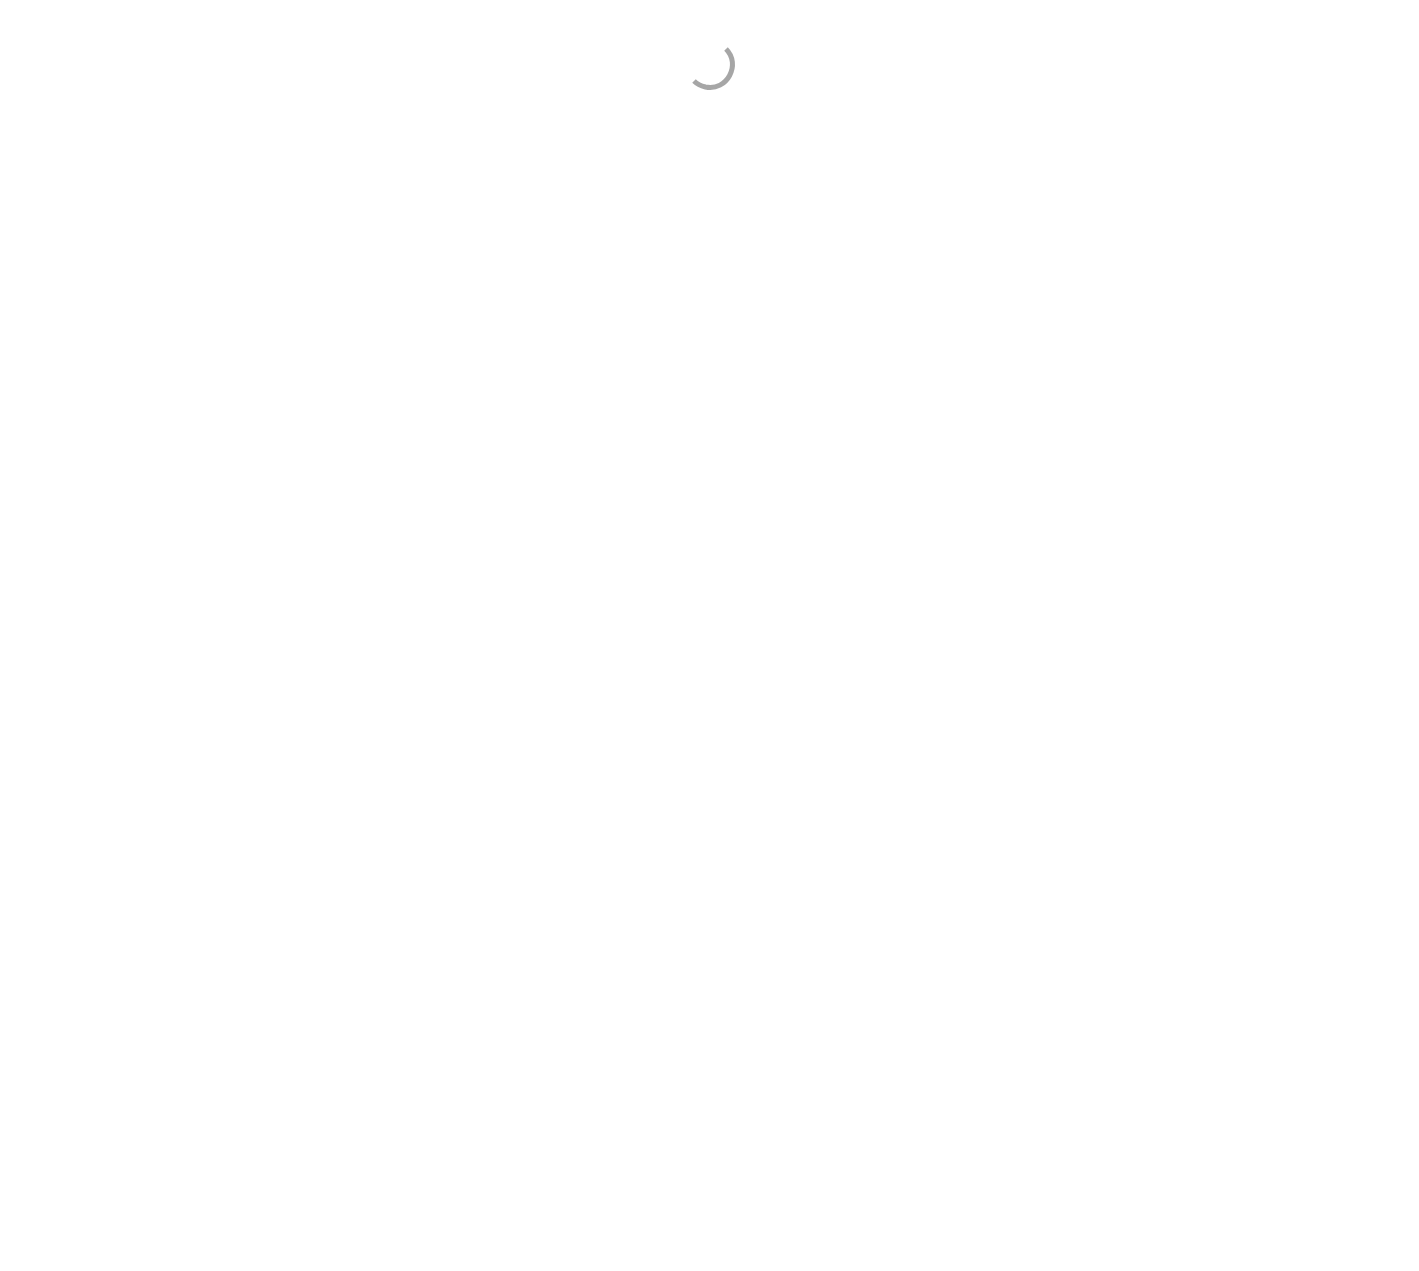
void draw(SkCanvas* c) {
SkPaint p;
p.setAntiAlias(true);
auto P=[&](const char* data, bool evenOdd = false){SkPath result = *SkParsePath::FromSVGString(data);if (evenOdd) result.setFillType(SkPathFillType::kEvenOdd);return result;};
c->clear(0xffffffff);
p.setStroke(true);
p.setStrokeWidth(5);
p.setColor(0xffa6a6a6);
c->drawPath(P("M726 49c15.5 15.5 1 42.5-20.5 38c-4-1-8.5-3-11.5-6"),p);
}
